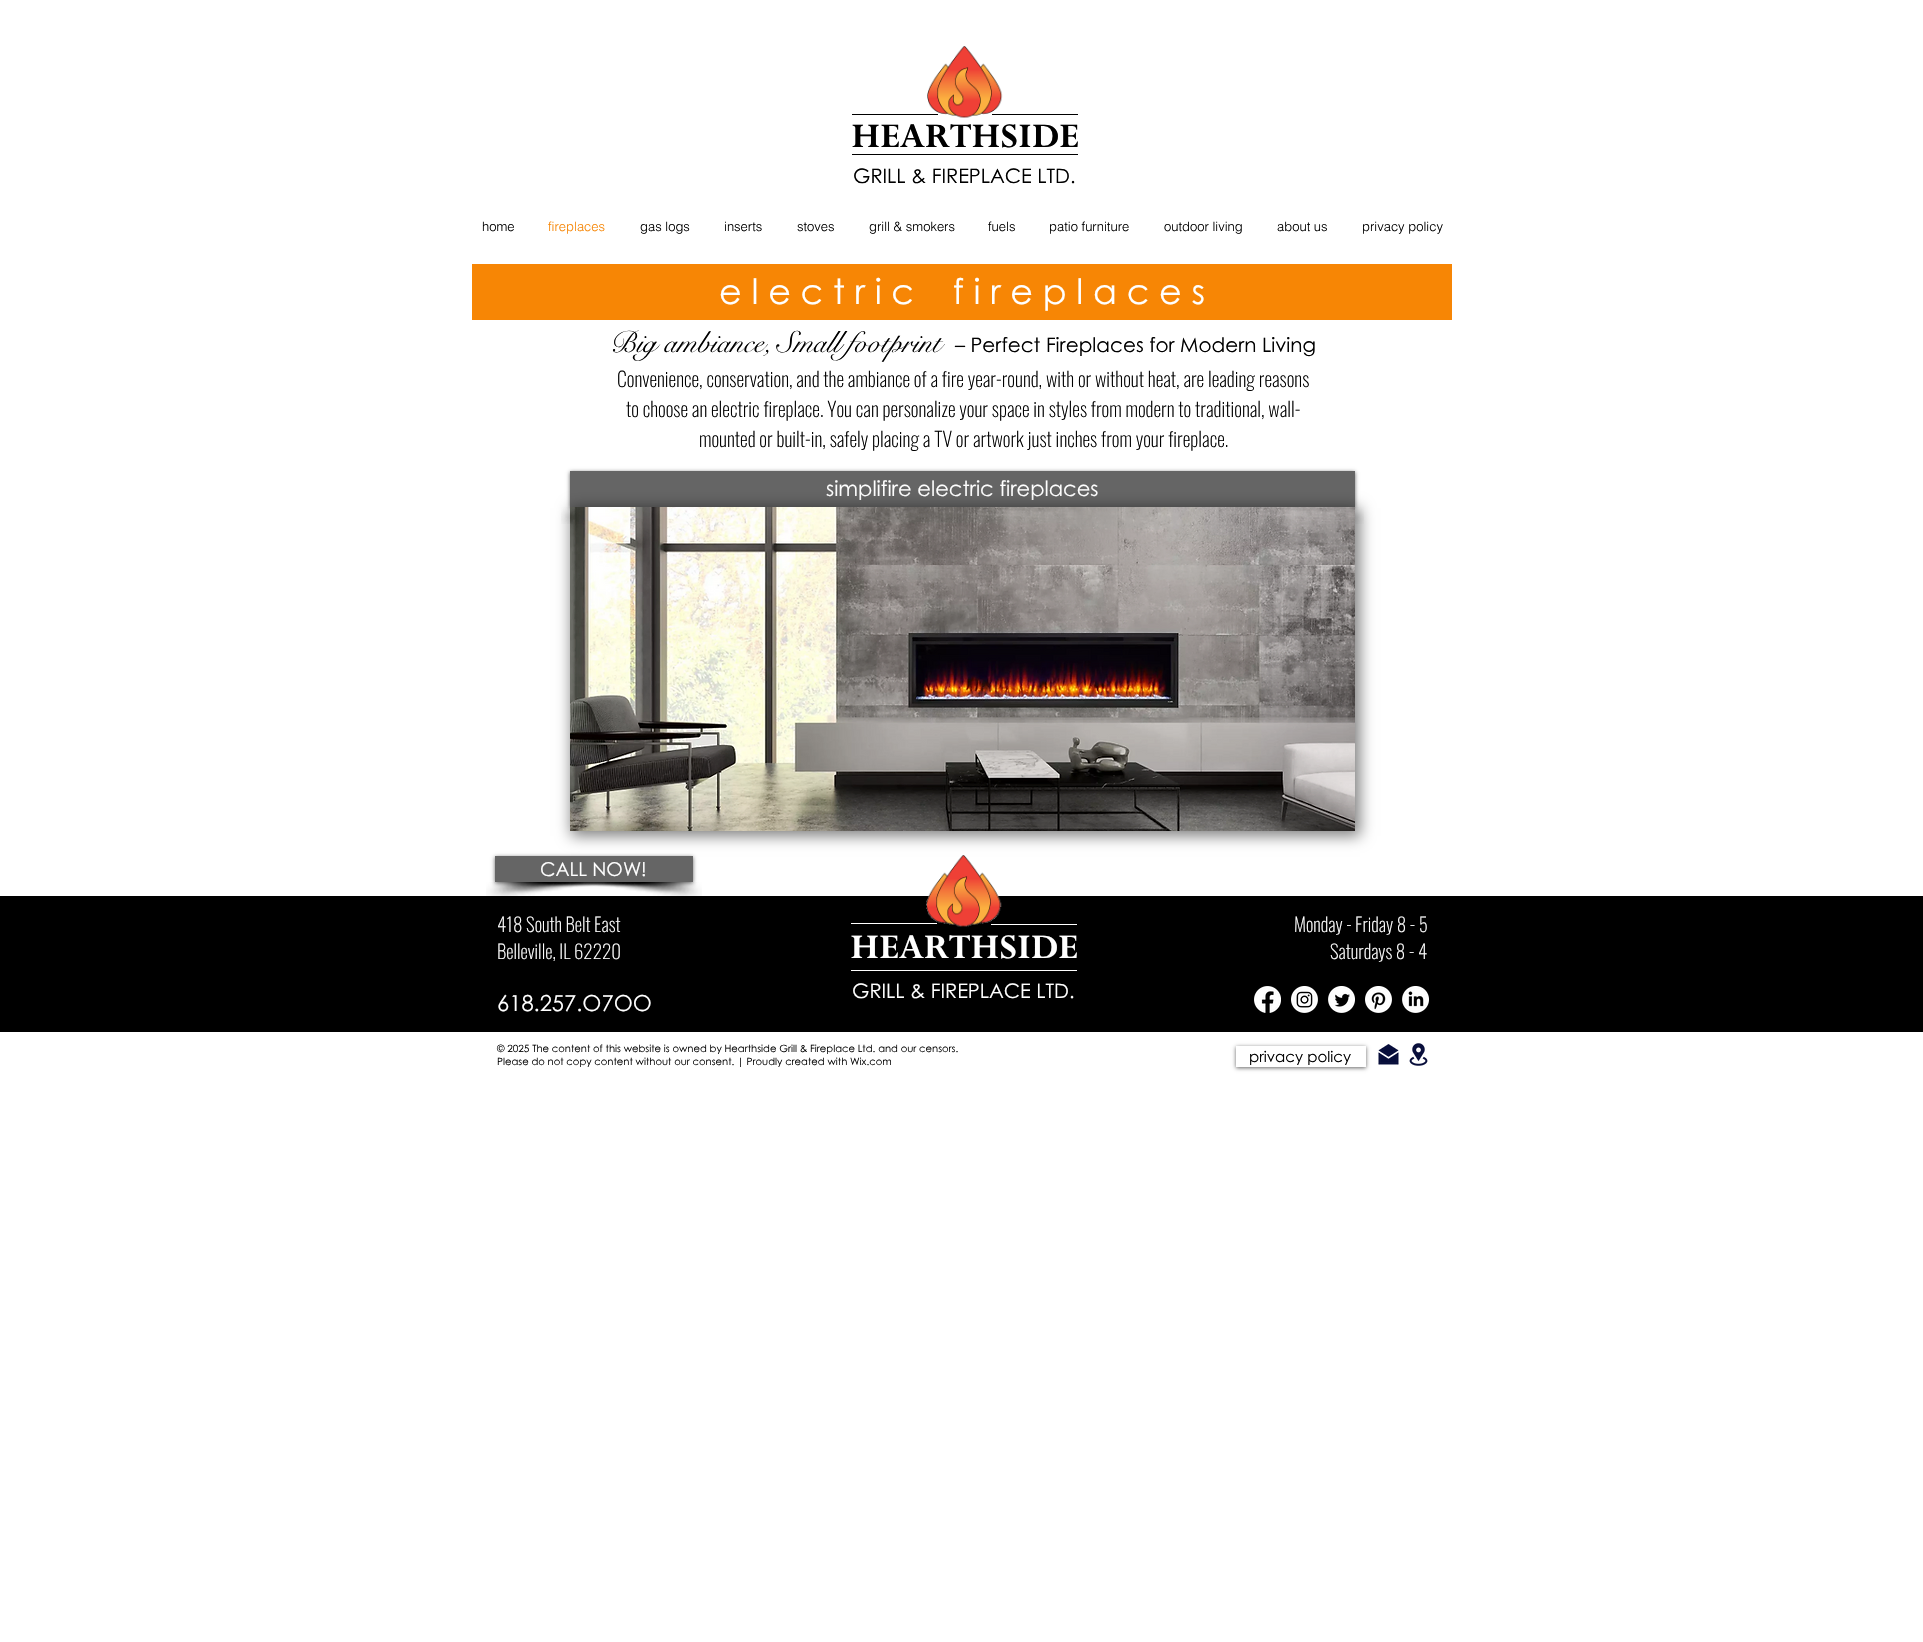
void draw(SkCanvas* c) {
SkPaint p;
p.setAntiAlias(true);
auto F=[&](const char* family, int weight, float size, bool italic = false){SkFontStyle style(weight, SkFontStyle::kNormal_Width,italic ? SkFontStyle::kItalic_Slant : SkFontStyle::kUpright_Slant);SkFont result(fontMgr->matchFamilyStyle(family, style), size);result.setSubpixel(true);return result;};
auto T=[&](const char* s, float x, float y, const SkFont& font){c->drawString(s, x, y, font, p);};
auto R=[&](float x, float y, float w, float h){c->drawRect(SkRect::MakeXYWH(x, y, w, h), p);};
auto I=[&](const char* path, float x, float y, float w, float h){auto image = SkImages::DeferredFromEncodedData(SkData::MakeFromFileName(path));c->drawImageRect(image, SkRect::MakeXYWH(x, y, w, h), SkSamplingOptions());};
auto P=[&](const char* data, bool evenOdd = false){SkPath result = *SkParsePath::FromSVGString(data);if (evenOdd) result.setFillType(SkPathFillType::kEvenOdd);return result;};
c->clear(0xffffffff);
p.setColor(0xff000000);
R(852,114,86,1);
R(992,114,86,1);
I("1.png",927,46,76,72);
auto f1 = F("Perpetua",700,38);
T("HEARTHSIDE",851,147,f1);
auto f2 = F("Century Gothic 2",400,20);
T("GRILL & FIREPLACE LTD.",853,183,f2);
R(852,154,226,1);
auto f3 = F("helvetica",300,13);
T("home",482,231,f3);
p.setColor(0xfff78605);
T("fireplaces",548,231,f3);
p.setColor(0xff000000);
T("gas logs",640,231,f3);
T("inserts",724,231,f3);
T("stoves",797,231,f3);
T("grill & smokers",869,231,f3);
T("fuels",988,231,f3);
T("patio furniture",1049,231,f3);
T("outdoor living",1164,231,f3);
T("about us",1277,231,f3);
T("privacy policy",1362,231,f3);
p.setColor(0xfff78605);
R(472,264,980,56);
auto f4 = F("Century Gothic",400,35);
p.setColor(0xffffffff);
T("e l e c t r i c    f i r e p l a c e s",719,304,f4);
auto f5 = F("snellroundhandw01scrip",400,30);
p.setColor(0xff000000);
T("Big ambiance,",610,352,f5);
T("Small footprint",777,352,f5);
T("– Perfect Fireplaces for Modern Living",955,352,f2);
auto f6 = F("Oswald",200,20);
T("Convenience, conservation, and the ambiance of a fire year-round, with or without heat, are leading reasons",617,387,f6);
T("to choose an electric fireplace. You can personalize your space in styles from modern to traditional, wall-",626,417,f6);
T("mounted or built-in, safely placing a TV or artwork just inches from your fireplace.",699,447,f6);
I("2.png",561,507,9,17);
I("3.png",1355,507,9,17);
p.setColor(0x99000000);
p.setMaskFilter(SkMaskFilter::MakeBlur(kNormal_SkBlurStyle, 2));
c->drawRect(SkRect::MakeXYWH(570,472,785,36),p);
p.setMaskFilter(nullptr);
p.setColor(0xff656565);
R(570,471,785,36);
auto f7 = F("Century Gothic",400,21);
p.setColor(0xffffffff);
T("simplifire electric fireplaces",826,496,f7);
p.setColor(0x80000000);
p.setMaskFilter(SkMaskFilter::MakeBlur(kNormal_SkBlurStyle, 7));
c->drawRect(SkRect::MakeXYWH(571,508,789,328),p);
p.setMaskFilter(nullptr);
I("4.png",570,507,785,324);
I("5.png",486,882,145,14);
I("6.png",571,882,131,14);
p.setColor(0x99000000);
p.setMaskFilter(SkMaskFilter::MakeBlur(kNormal_SkBlurStyle, 2));
c->drawRect(SkRect::MakeXYWH(495,857,198,26),p);
p.setMaskFilter(nullptr);
p.setColor(0xff656565);
R(495,856,198,26);
auto f8 = F("Century Gothic",400,19);
p.setColor(0xffffffff);
T("CALL NOW!",540,876,f8);
p.setColor(0xff000000);
R(0,896,1923,136);
p.setColor(0xffffffff);
R(851,923,86,1);
R(991,924,86,1);
I("7.png",926,855,76,72);
auto f9 = F("Oswald",200,19);
T("418 South Belt East",497,932,f9);
T("Belleville, IL 62220",497,959,f9);
T("HEARTHSIDE",850,958,f1);
T("GRILL & FIREPLACE LTD.",852,998,f2);
T("Monday - Friday 8 - 5",1294,932,f9);
T("Saturdays 8 - 4",1330,959,f9);
auto f10 = F("Century Gothic 2",400,22);
T("618.257.O7OO",497,1011,f10);
I("8.png",1254,986,27,27);
I("9.png",1291,986,27,27);
I("10.png",1328,986,27,27);
I("11.png",1365,986,27,27);
I("12.png",1402,986,27,27);
R(851,970,226,1);
auto f11 = F("Century Gothic 2",400,10);
p.setColor(0xff000000);
T("© 2025 The content of this website is owned by Hearthside Grill & Fireplace Ltd. and our censors.",497,1052,f11);
T("Please do not copy content without our consent. | Proudly created with Wix.com",497,1065,f11);
c->save();
c->clipPath(P("M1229 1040h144v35h-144zm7 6h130v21h-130z",true),true);
p.setColor(0x99000000);
p.setMaskFilter(SkMaskFilter::MakeBlur(kNormal_SkBlurStyle, 2));
c->drawRect(SkRect::MakeXYWH(1236,1047,130,21),p);
p.setMaskFilter(nullptr);
c->restore();
auto f12 = F("Century Gothic",400,15);
p.setColor(0xff000000);
T("privacy policy",1249,1062,f12);
I("13.png",1378,1044,21,21);
I("14.png",1409,1043,19,23);
}
